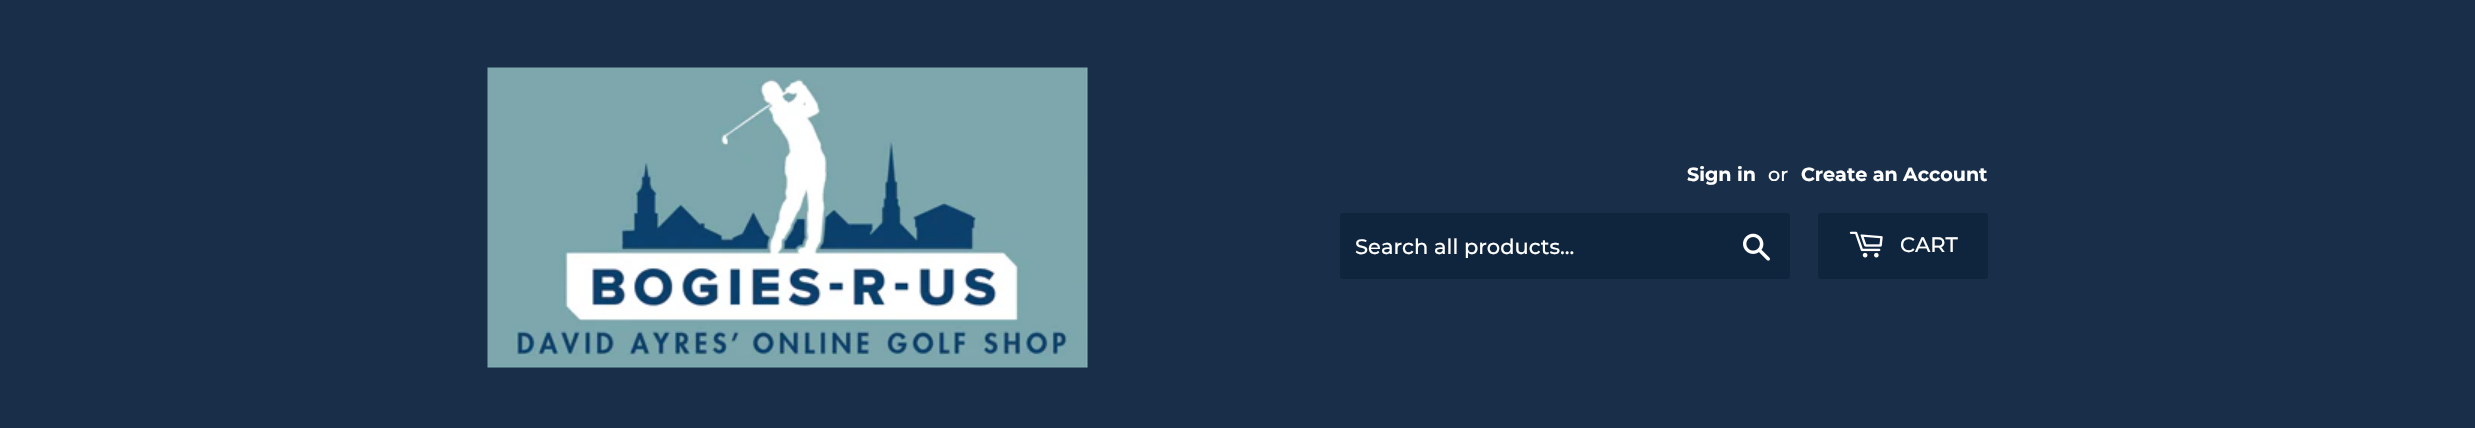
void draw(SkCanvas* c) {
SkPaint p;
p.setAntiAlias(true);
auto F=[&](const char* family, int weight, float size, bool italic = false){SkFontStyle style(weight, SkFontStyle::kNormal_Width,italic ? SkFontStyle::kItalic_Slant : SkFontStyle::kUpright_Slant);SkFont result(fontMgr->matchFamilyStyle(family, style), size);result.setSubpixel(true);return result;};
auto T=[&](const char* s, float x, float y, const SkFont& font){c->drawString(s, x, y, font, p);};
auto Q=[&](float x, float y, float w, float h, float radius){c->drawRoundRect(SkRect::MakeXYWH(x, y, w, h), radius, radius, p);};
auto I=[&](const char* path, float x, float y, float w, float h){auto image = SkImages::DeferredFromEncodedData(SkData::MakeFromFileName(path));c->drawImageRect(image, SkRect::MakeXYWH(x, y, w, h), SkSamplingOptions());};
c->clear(0xff182e49);
I("1.png",487,67,601,301);
auto f1 = F("Montserrat",700,19.1);
p.setColor(0xffffffff);
T("Sign in",1687,181,f1);
auto f2 = F("Montserrat",500,19.1);
T("or",1768,181,f2);
T("Create an Account",1801,181,f1);
p.setColor(0xff0f243d);
Q(1340,213,450,66,3);
auto f3 = F("Montserrat",500,21);
p.setColor(0xffffffff);
T("Search all products...",1355,254,f3);
I("2.png",1743,233,27,28);
p.setColor(0xff0f243d);
Q(1818,213,170,66,3);
I("3.png",1849,231,34,27);
p.setColor(0xffffffff);
T("CART",1900,252,f3);
}
